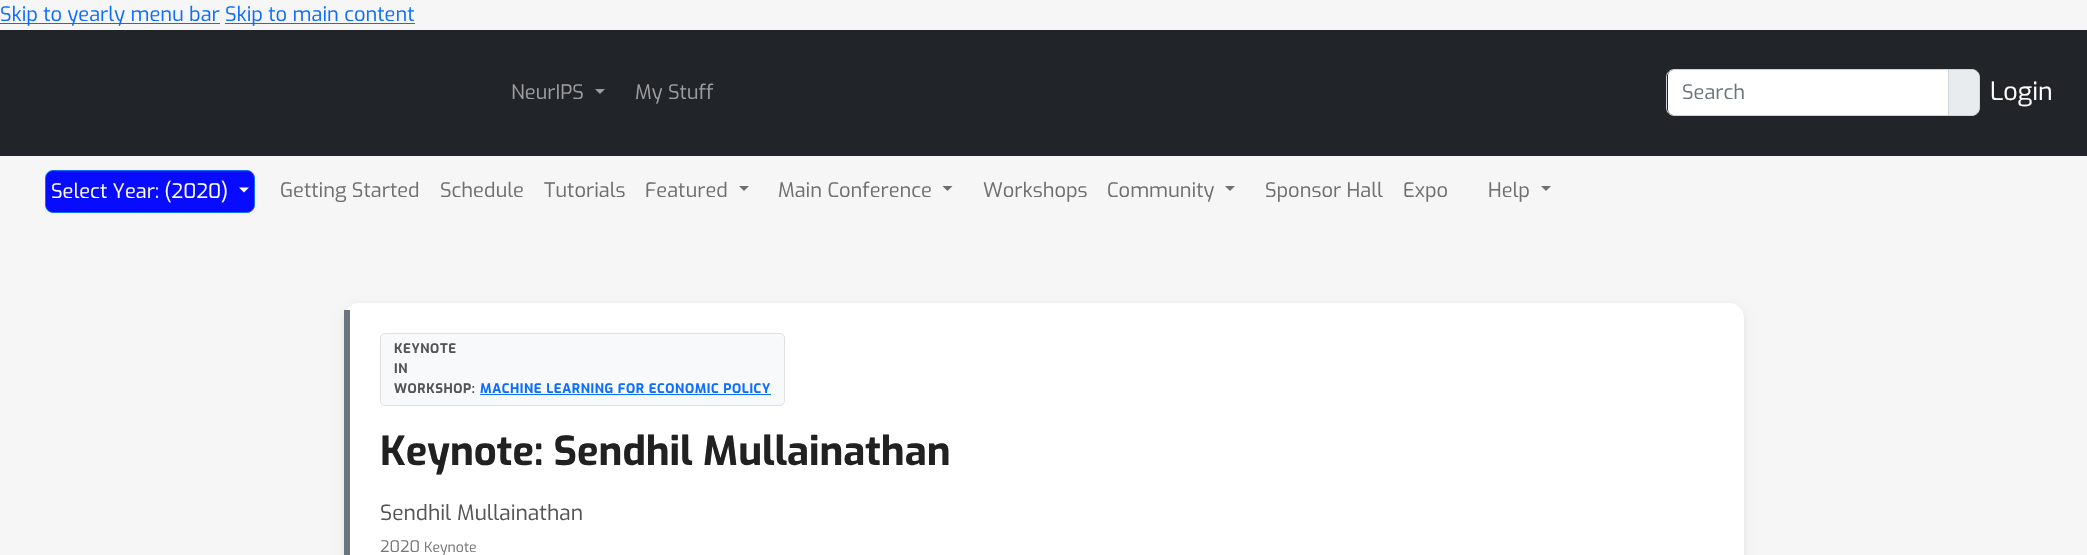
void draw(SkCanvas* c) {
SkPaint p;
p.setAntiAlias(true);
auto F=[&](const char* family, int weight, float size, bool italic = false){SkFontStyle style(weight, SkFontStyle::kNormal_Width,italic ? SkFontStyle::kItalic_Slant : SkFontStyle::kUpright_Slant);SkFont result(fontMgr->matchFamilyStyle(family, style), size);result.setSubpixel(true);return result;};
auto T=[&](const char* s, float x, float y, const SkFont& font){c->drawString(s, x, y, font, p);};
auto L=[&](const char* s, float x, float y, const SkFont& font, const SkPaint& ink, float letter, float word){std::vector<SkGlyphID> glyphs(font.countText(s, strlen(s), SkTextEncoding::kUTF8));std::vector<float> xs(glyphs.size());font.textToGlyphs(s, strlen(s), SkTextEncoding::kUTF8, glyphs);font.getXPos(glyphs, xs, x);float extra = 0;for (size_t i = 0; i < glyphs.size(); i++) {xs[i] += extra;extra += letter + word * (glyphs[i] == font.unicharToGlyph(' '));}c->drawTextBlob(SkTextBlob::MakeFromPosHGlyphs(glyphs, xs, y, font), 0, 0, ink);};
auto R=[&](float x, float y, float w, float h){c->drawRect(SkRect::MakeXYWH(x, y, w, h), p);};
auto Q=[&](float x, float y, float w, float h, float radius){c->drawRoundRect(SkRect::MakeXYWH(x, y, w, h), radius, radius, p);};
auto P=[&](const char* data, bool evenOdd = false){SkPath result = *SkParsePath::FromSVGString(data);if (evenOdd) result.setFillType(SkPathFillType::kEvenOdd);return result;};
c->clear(0xfff6f6f6);
p.setColor(0xff0d6efd);
R(0,23,220,1);
auto f1 = F("Exo",400,20);
T("Skip to yearly menu bar",0,21,f1);
R(225,23,190,1);
T("Skip to main content",225,21,f1);
p.setColor(0xff212529);
R(0,30,2087,126);
p.setColor(0xff9b9d9f);
T("NeurIPS",511,99,f1);
c->drawPath(P("M595 89h10l-5 5z"),p);
T("My Stuff",635,99,f1);
p.setColor(0xffffffff);
c->drawPath(P("M1674 70h274v45h-274c-3.5 0-6-2.5-6-6v-33c0-3.5 2.5-6 6-6z"),p);
p.setColor(0xffe9ecef);
c->drawPath(P("M1948.5 69.5h23.5c4 0 7.5 3.5 7.5 7.5v31c0 4-3.5 7.5-7.5 7.5h-23.5z"),p);
p.setStroke(true);
p.setStrokeWidth(1);
p.setColor(0xffced4da);
c->drawPath(P("M1948.5 69.5h23.5c4 0 7.5 3.5 7.5 7.5v31c0 4-3.5 7.5-7.5 7.5h-23.5z"),p);
c->drawPath(P("M1674 69.5h274.5v46h-274.5c-4 0-7.5-3.5-7.5-7.5v-31c0-4 3.5-7.5 7.5-7.5z"),p);
p.setStroke(false);
p.setColor(0xff6c757d);
T("Search",1682,99,f1);
auto f2 = F("Exo",400,25);
p.setColor(0xffffffff);
T("Login",1990,100,f2);
p.setColor(0xff070bff);
c->drawRoundRect(SkRect::MakeXYWH(45.5,170.5,209,42),7.5,7.5,p);
p.setStroke(true);
p.setColor(0xff0d6efd);
c->drawRoundRect(SkRect::MakeXYWH(45.5,170.5,209,42),7.5,7.5,p);
p.setStroke(false);
p.setColor(0xffffffff);
T("Select Year: (2020)",51,198,f1);
c->drawPath(P("M239 187.5h10l-5 5z"),p);
p.setColor(0xff6f6f6f);
T("Getting Started",280,197,f1);
T("Schedule",440,197,f1);
T("Tutorials",544,197,f1);
T("Featured",645,197,f1);
c->drawPath(P("M739 186h10l-5 5z"),p);
T("Main Conference",778,197,f1);
c->drawPath(P("M942.5 186h10l-5 5z"),p);
T("Workshops",983,197,f1);
T("Community",1107,197,f1);
c->drawPath(P("M1225 186h10l-5 5z"),p);
T("Sponsor Hall",1265,197,f1);
T("Expo",1403,197,f1);
T("Help",1488,197,f1);
c->drawPath(P("M1541 186h10l-5 5z"),p);
p.setColor(0x14000000);
p.setMaskFilter(SkMaskFilter::MakeBlur(kNormal_SkBlurStyle, 4));
c->drawRoundRect(SkRect::MakeXYWH(344,305,1400,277),15,15,p);
p.setMaskFilter(nullptr);
p.setColor(0xffffffff);
Q(344,303,1400,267,15);
p.setColor(0xff6c757d);
R(344,310,6,245);
p.setColor(0xfff8f9fa);
c->drawRoundRect(SkRect::MakeXYWH(380.5,333.5,404,72),4.5,4.5,p);
p.setStroke(true);
p.setColor(0xffe0e0e0);
c->drawRoundRect(SkRect::MakeXYWH(380.5,333.5,404,72),4.5,4.5,p);
auto f3 = F("Exo",700,13.1);
p.setStroke(false);
p.setColor(0xff555555);
L("KEYNOTE",394,353,f3,p,.6,0);
L("IN",394,373,f3,p,.6,0);
L("WORKSHOP:",394,393,f3,p,.6,0);
p.setColor(0xff0d6efd);
L("MACHINE LEARNING FOR ECONOMIC POLICY",480,393,f3,p,.6,0);
R(480,394,291,1);
auto f4 = F("Exo",700,40);
p.setColor(0xff212121);
T("Keynote: Sendhil Mullainathan",380,465,f4);
auto f5 = F("Exo",400,21);
p.setColor(0xff555555);
T("Sendhil Mullainathan",380,520,f5);
auto f6 = F("Exo",400,16);
p.setColor(0xff777777);
T("2020",380,552,f6);
auto f7 = F("Exo",400,14);
T("Keynote",424,552,f7);
}
